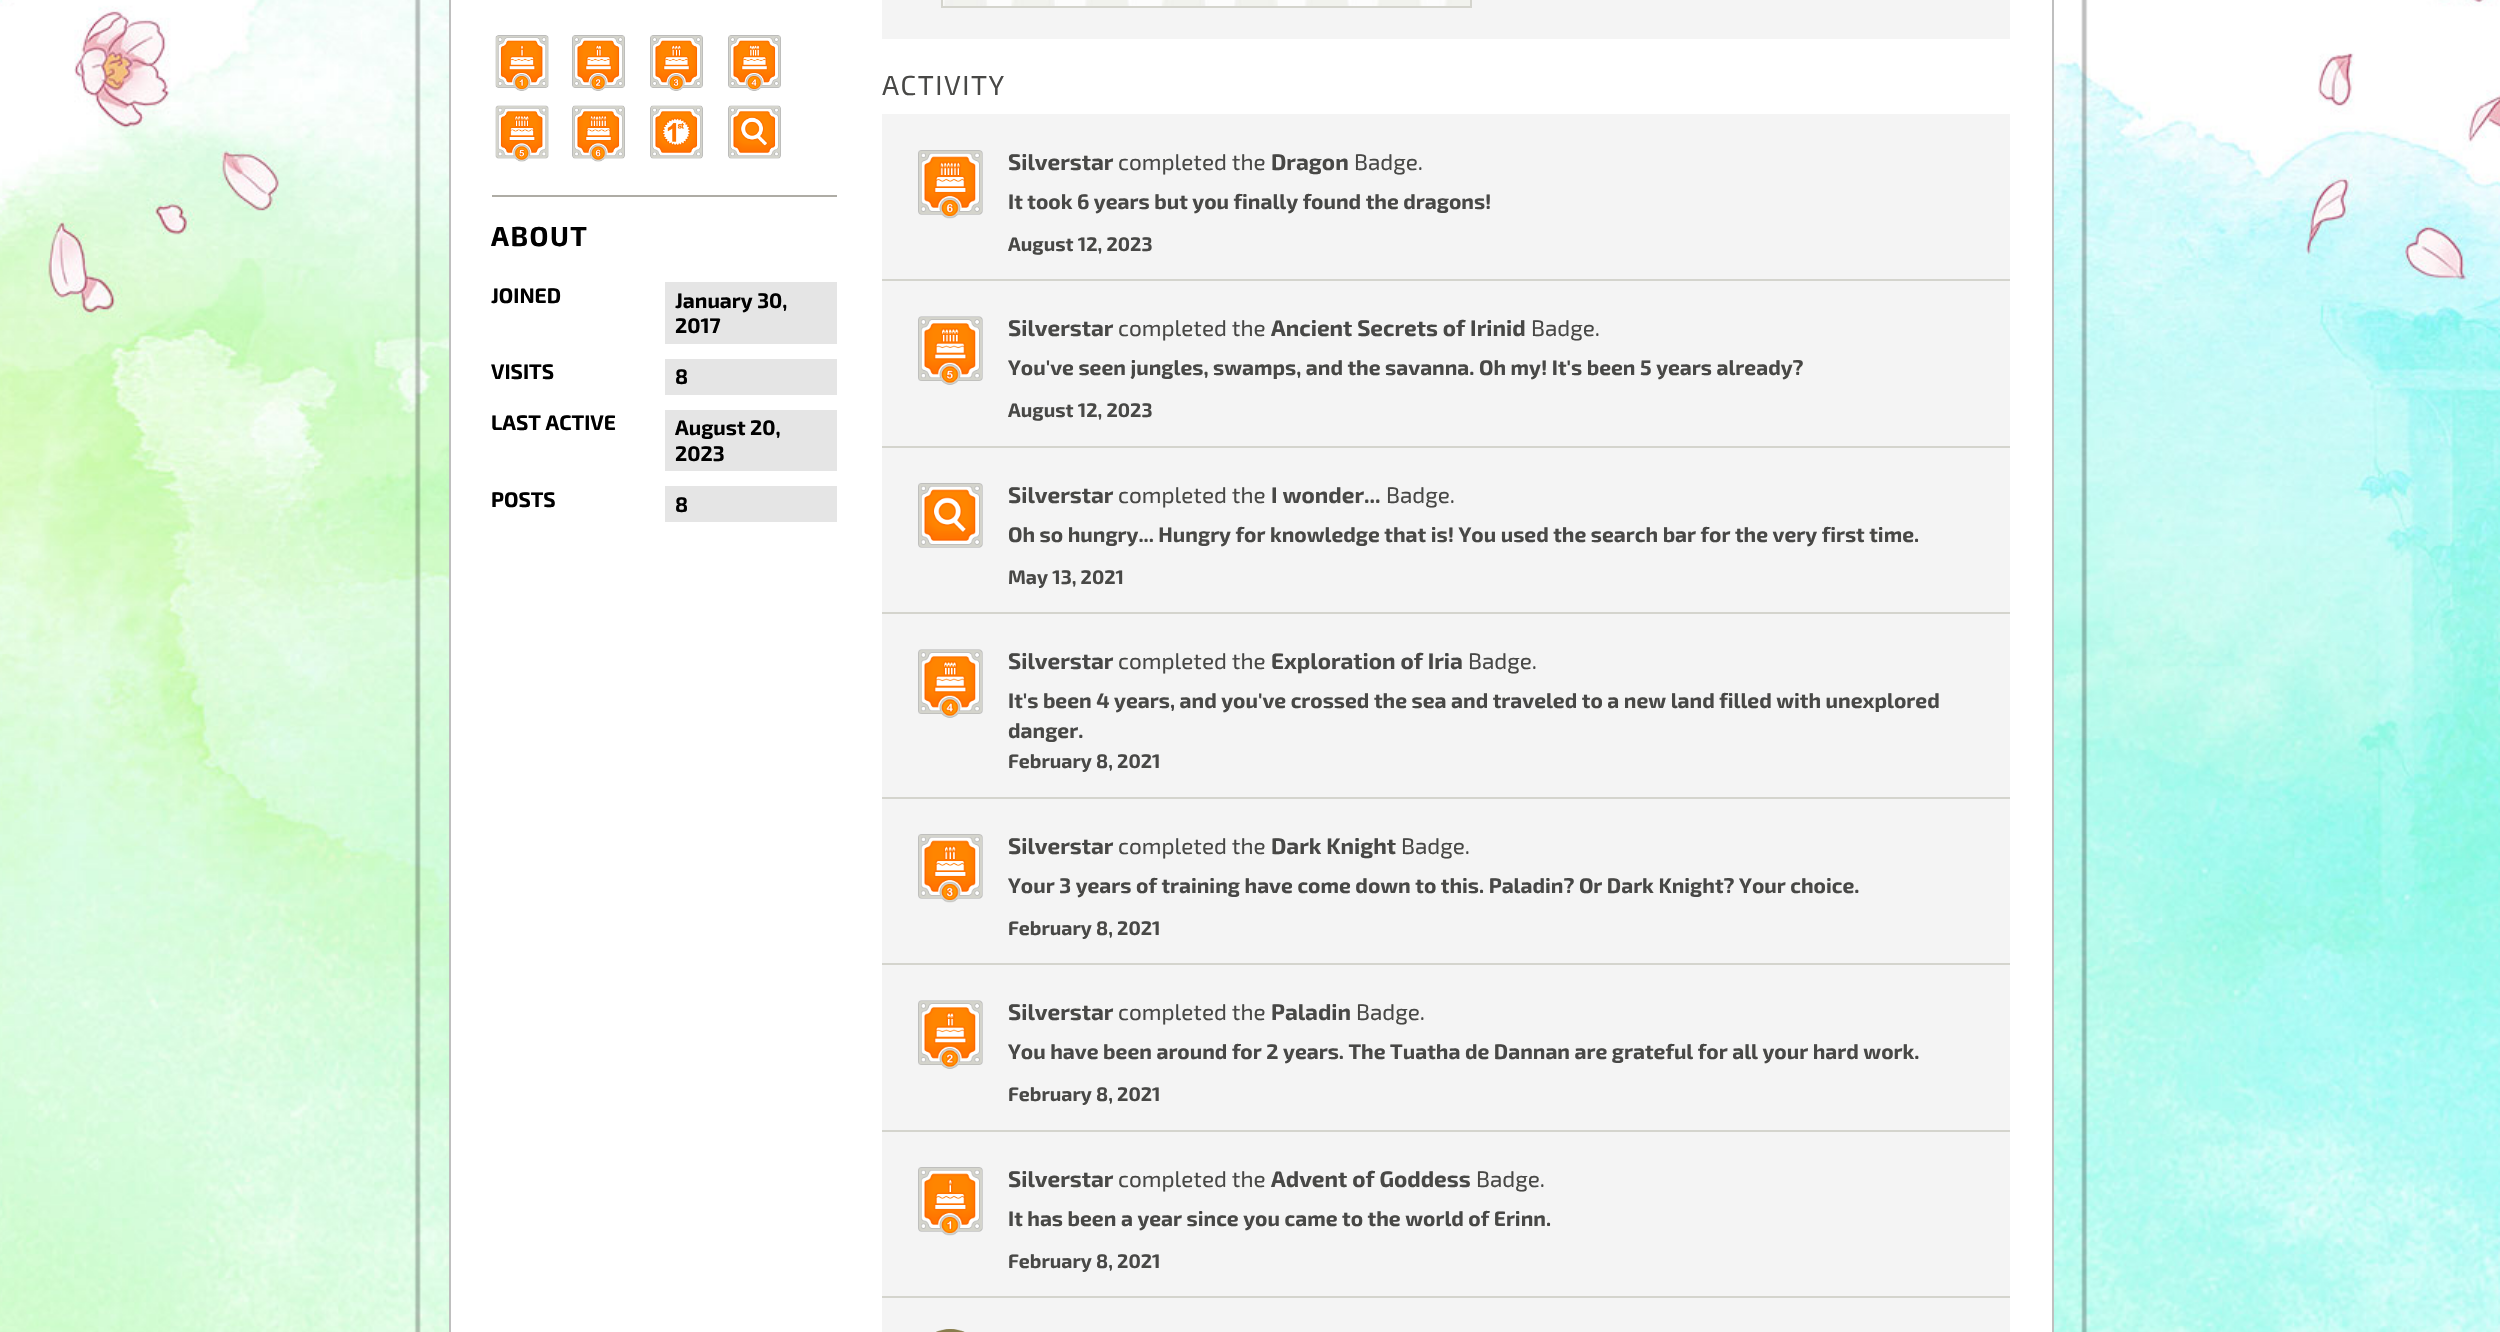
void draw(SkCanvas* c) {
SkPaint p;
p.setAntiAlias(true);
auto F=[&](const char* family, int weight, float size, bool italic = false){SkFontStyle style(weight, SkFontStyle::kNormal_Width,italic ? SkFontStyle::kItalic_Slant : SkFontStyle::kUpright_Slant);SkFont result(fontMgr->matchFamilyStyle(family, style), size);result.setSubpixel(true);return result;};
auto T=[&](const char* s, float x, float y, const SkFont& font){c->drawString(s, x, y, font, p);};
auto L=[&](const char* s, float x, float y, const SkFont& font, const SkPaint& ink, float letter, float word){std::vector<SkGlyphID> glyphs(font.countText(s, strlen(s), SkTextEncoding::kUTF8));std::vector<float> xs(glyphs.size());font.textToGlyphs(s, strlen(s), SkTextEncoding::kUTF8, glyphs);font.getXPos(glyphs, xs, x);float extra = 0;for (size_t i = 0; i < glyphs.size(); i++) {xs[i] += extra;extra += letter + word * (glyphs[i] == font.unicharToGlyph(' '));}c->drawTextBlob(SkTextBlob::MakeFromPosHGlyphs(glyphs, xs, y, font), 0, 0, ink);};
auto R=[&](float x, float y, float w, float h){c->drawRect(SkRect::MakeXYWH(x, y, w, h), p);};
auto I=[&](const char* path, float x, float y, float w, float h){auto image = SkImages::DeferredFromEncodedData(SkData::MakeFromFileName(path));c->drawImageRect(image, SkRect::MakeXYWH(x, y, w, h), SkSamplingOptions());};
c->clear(0xffffffff);
I("1.png",0,0,2500,1332);
I("2.png",414,0,1674,1332);
p.setColor(0xffffffff);
c->drawRect(SkRect::MakeXYWH(450,-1,1603,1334),p);
p.setStroke(true);
p.setStrokeWidth(2);
p.setColor(0xffbfbfbf);
c->drawRect(SkRect::MakeXYWH(450,-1,1603,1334),p);
I("3.png",495,35,54,56);
I("4.png",572,35,53,56);
I("5.png",650,35,53,56);
I("6.png",728,35,53,56);
I("7.png",495,105,54,57);
I("8.png",572,105,53,57);
I("9.png",650,105,53,54);
I("10.png",728,105,53,54);
p.setStroke(false);
p.setColor(0xffaeaca5);
R(492,195,345,2);
auto f1 = F("Exo 2",700,27.5);
p.setColor(0xff000000);
L("ABOUT",491,246,f1,p,1.5,0);
auto f2 = F("Exo 2",700,21);
T("JOINED",491,303,f2);
p.setColor(0xffe5e5e5);
R(665,282,172,62);
p.setColor(0xff000000);
T("January 30,",675,308,f2);
T("2017",675,333,f2);
T("VISITS",491,379,f2);
p.setColor(0xffe5e5e5);
R(665,359,172,36);
p.setColor(0xff000000);
T("8",675,384,f2);
T("LAST ACTIVE",491,430,f2);
p.setColor(0xffe5e5e5);
R(665,410,172,61);
p.setColor(0xff000000);
T("August 20,",675,435,f2);
T("2023",675,461,f2);
T("POSTS",491,507,f2);
p.setColor(0xffe5e5e5);
R(665,486,172,36);
p.setColor(0xff000000);
T("8",675,512,f2);
p.setColor(0xfff4f4f4);
R(882,0,1128,39);
I("11.png",943,0,527,6);
p.setStroke(true);
p.setColor(0xffd4d4cd);
c->drawRect(SkRect::MakeXYWH(942,-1,529,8),p);
auto f3 = F("Exo 2",400,27.5);
p.setStroke(false);
p.setColor(0xff484846);
L("ACTIVITY",882,95,f3,p,1.5,0);
p.setColor(0xfff4f4f4);
R(882,114,1128,1218);
p.setColor(0xffd4d4cd);
R(882,279,1128,2);
I("12.png",918,150,65,69);
auto f4 = F("Exo 2",700,22.5);
p.setColor(0xff484846);
T("Silverstar",1008,170,f4);
auto f5 = F("Exo 2",400,22.5);
T("completed the",1118,170,f5);
T("Dragon",1271,170,f4);
T("Badge.",1354,170,f5);
T("It took 6 years but you finally found the dragons!",1008,209,f2);
auto f6 = F("Exo 2",700,19.5);
T("August 12, 2023",1008,251,f6);
p.setColor(0xffd4d4cd);
R(882,446,1128,2);
I("13.png",918,316,65,69);
p.setColor(0xff484846);
T("Silverstar",1008,336,f4);
T("completed the",1118,336,f5);
T("Ancient Secrets of Irinid",1271,336,f4);
T("Badge.",1531,336,f5);
T("You've seen jungles, swamps, and the savanna. Oh my! It's been 5 years already?",1008,375,f2);
T("August 12, 2023",1008,417,f6);
p.setColor(0xffd4d4cd);
R(882,612,1128,2);
I("14.png",918,483,65,65);
p.setColor(0xff484846);
T("Silverstar",1008,503,f4);
T("completed the",1118,503,f5);
T("I wonder...",1271,503,f4);
T("Badge.",1386,503,f5);
T("Oh so hungry... Hungry for knowledge that is! You used the search bar for the very first time.",1008,542,f2);
T("May 13, 2021",1008,584,f6);
p.setColor(0xffd4d4cd);
R(882,797,1128,2);
I("15.png",918,649,65,69);
p.setColor(0xff484846);
T("Silverstar",1008,669,f4);
T("completed the",1118,669,f5);
T("Exploration of Iria",1271,669,f4);
T("Badge.",1468,669,f5);
T("It's been 4 years, and you've crossed the sea and traveled to a new land filled with unexplored",1008,708,f2);
T("danger.",1008,738,f2);
T("February 8, 2021",1008,768,f6);
p.setColor(0xffd4d4cd);
R(882,963,1128,2);
I("16.png",918,834,65,69);
p.setColor(0xff484846);
T("Silverstar",1008,854,f4);
T("completed the",1118,854,f5);
T("Dark Knight",1271,854,f4);
T("Badge.",1401,854,f5);
T("Your 3 years of training have come down to this. Paladin? Or Dark Knight? Your choice.",1008,893,f2);
T("February 8, 2021",1008,935,f6);
p.setColor(0xffd4d4cd);
R(882,1130,1128,2);
I("17.png",918,1000,65,69);
p.setColor(0xff484846);
T("Silverstar",1008,1020,f4);
T("completed the",1118,1020,f5);
T("Paladin",1271,1020,f4);
T("Badge.",1356,1020,f5);
T("You have been around for 2 years. The Tuatha de Dannan are grateful for all your hard work.",1008,1059,f2);
T("February 8, 2021",1008,1101,f6);
p.setColor(0xffd4d4cd);
R(882,1296,1128,2);
I("18.png",918,1167,65,69);
p.setColor(0xff484846);
T("Silverstar",1008,1187,f4);
T("completed the",1118,1187,f5);
T("Advent of Goddess",1271,1187,f4);
T("Badge.",1476,1187,f5);
T("It has been a year since you came to the world of Erinn.",1008,1226,f2);
T("February 8, 2021",1008,1268,f6);
I("19.png",936,1329,29,3);
}
